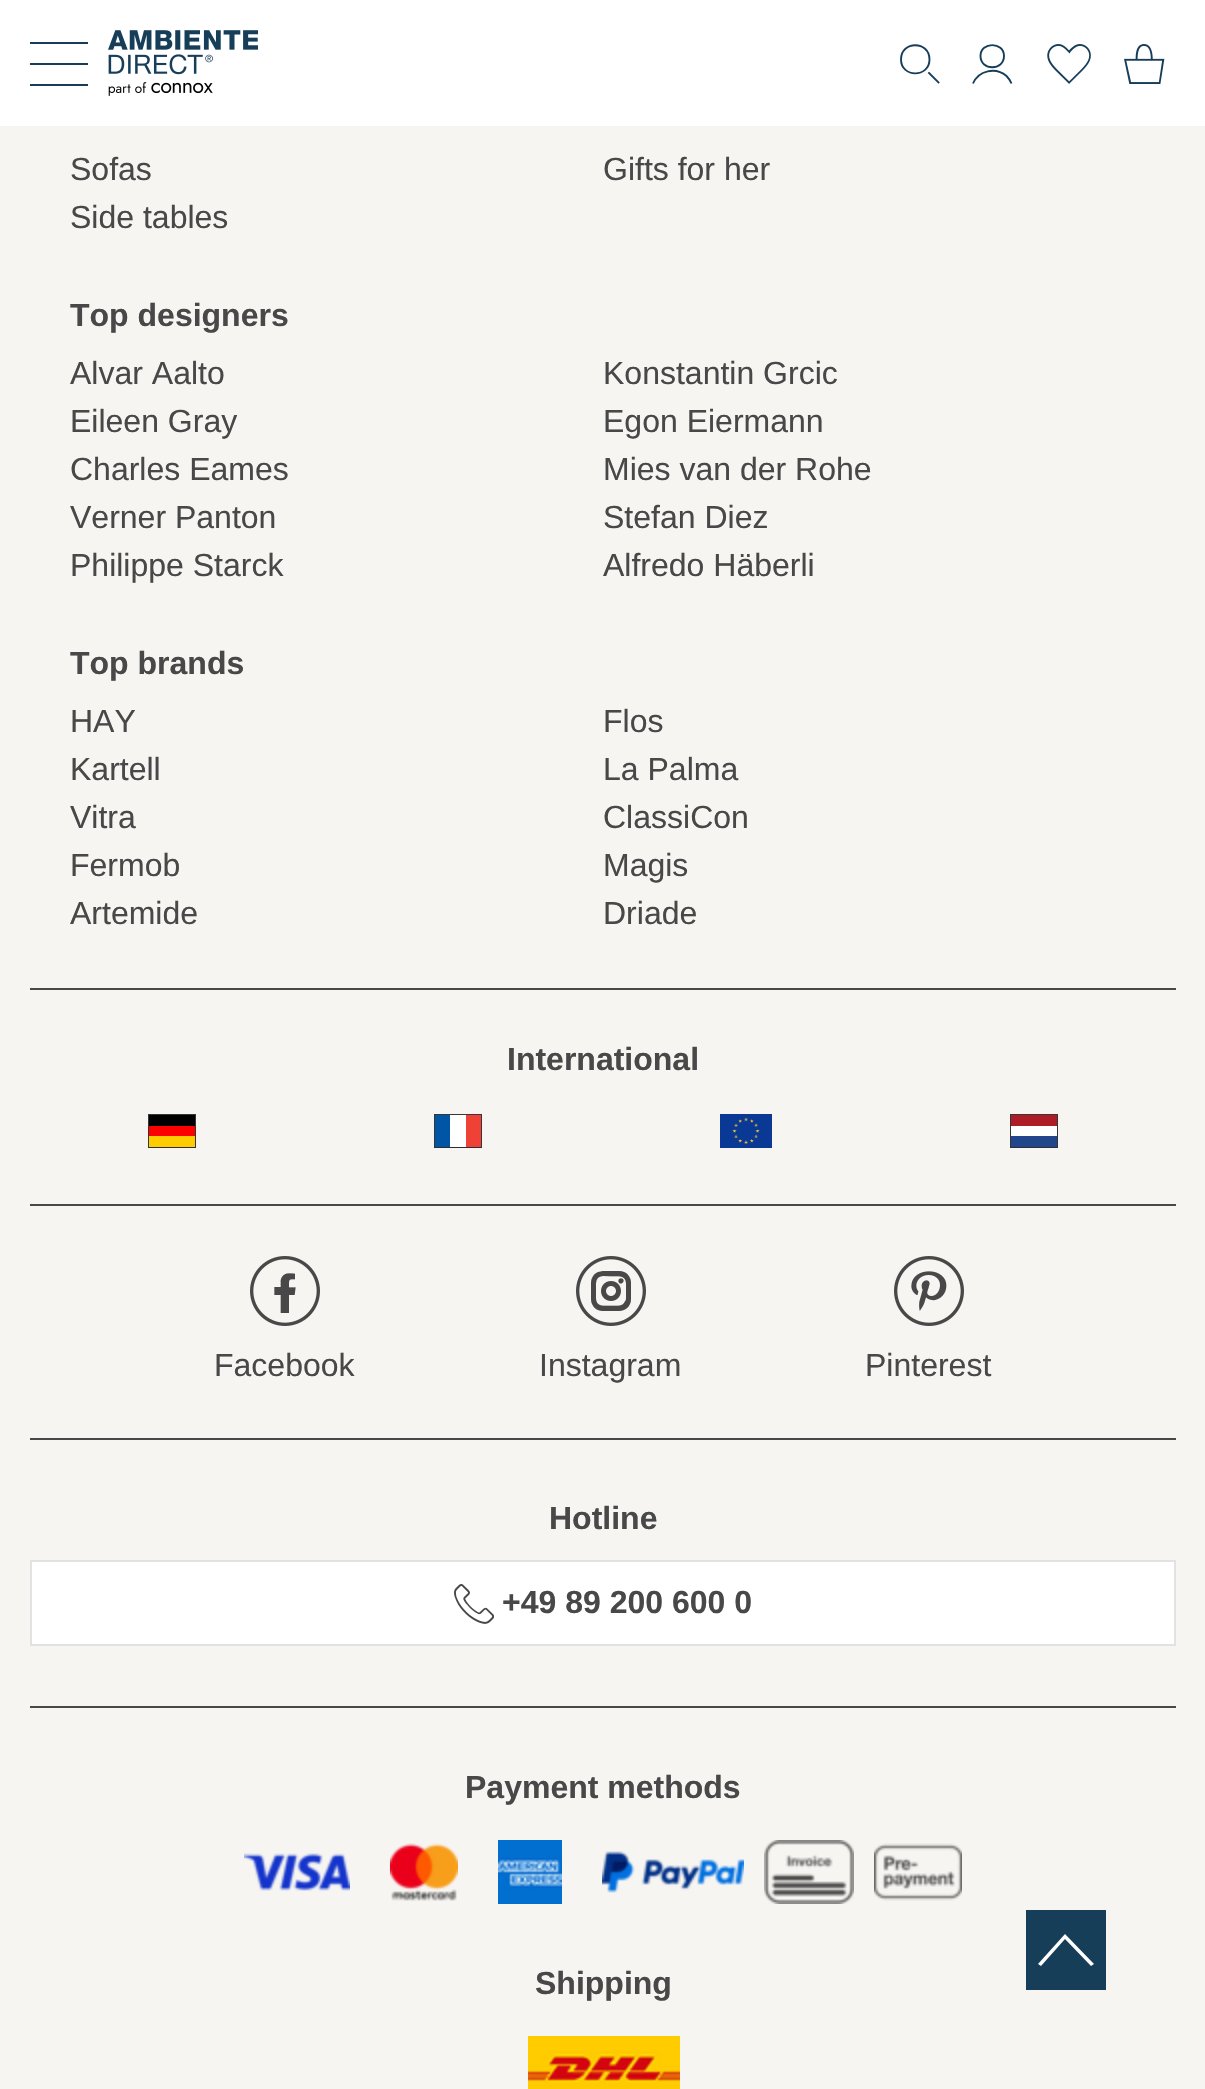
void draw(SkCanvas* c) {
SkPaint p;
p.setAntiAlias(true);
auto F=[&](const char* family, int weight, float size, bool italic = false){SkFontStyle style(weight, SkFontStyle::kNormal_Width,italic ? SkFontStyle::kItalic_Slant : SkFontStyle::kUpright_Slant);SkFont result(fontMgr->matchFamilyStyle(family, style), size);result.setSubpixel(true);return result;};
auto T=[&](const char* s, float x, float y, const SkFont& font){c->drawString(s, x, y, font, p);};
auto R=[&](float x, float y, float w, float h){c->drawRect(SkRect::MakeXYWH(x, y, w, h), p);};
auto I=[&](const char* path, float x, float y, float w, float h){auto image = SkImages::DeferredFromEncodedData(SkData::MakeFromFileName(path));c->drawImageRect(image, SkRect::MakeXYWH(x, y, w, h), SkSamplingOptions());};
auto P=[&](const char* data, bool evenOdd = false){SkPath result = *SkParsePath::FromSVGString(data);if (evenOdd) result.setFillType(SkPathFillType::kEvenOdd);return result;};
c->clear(0xfff6f5f2);
p.setColor(0xffffffff);
R(0,0,1205,126);
p.setColor(0xff173e58);
R(30,42,58,2);
R(30,63,58,2);
R(30,84,58,2);
I("1.png",108,30,150,66);
p.setStroke(true);
p.setStrokeWidth(1.9);
p.setStrokeCap(SkPaint::kSquare_Cap);
c->drawPath(P("M929 73l9.5 9.5"),p);
p.setStrokeCap(SkPaint::kButt_Cap);
c->drawPath(P("M929.5 59.5c0 18.5-28.5 18.5-28.5 0c0-19 28.5-19 28.5 0z"),p);
c->drawPath(P("M973 83.5c5.5-13 22.5-17 33.5-7.5c2 2 4 5 5 7.5m-7.5-27.5c0 15-23.5 15-23.5 0c0-14.5 23.5-14.5 23.5 0z"),p);
I("2.png",1047,44,44,40);
I("3.png",1124,44,41,40);
auto f1 = F("Liberation Sans",400,32);
p.setStroke(false);
p.setColor(0xff484848);
T("Sofas",70,180,f1);
T("Gifts for her",603,180,f1);
T("Side tables",70,228,f1);
auto f2 = F("Liberation Sans",700,32);
T("Top designers",70,326,f2);
T("Alvar Aalto",70,384,f1);
T("Konstantin Grcic",603,384,f1);
T("Eileen Gray",70,432,f1);
T("Egon Eiermann",603,432,f1);
T("Charles Eames",70,480,f1);
T("Mies van der Rohe",603,480,f1);
T("Verner Panton",70,528,f1);
T("Stefan Diez",603,528,f1);
T("Philippe Starck",70,576,f1);
T("Alfredo Häberli",603,576,f1);
T("Top brands",70,674,f2);
T("HAY",70,732,f1);
T("Flos",603,732,f1);
T("Kartell",70,780,f1);
T("La Palma",603,780,f1);
T("Vitra",70,828,f1);
T("ClassiCon",603,828,f1);
T("Fermob",70,876,f1);
T("Magis",603,876,f1);
T("Artemide",70,924,f1);
T("Driade",603,924,f1);
R(30,988,1146,2);
T("International",507,1070,f2);
I("4.png",148,1114,48,34);
I("5.png",434,1114,48,34);
I("6.png",720,1114,52,34);
I("7.png",1010,1114,48,34);
R(30,1204,1146,2);
R(30,1438,1146,2);
I("8.png",250,1256,70,70);
T("Facebook",214,1376,f1);
I("9.png",576,1256,70,70);
T("Instagram",539,1376,f1);
I("10.png",894,1256,70,70);
T("Pinterest",865,1376,f1);
R(30,1706,1146,2);
T("Hotline",549,1529,f2);
p.setColor(0xffffffff);
c->drawRect(SkRect::MakeXYWH(31,1561,1144,84),p);
p.setStroke(true);
p.setStrokeWidth(2);
p.setColor(0xffe2e2e2);
c->drawRect(SkRect::MakeXYWH(31,1561,1144,84),p);
I("11.png",454,1584,40,40);
p.setStroke(false);
p.setColor(0xff484848);
T("+49 89 200 600 0",502,1613,f2);
T("Payment methods",465,1798,f2);
I("12.png",244,1853,106,38);
I("13.png",390,1843,68,58);
I("14.png",498,1840,64,64);
I("15.png",602,1851,142,42);
I("16.png",764,1840,90,64);
I("17.png",874,1843,88,58);
T("Shipping",535,1994,f2);
I("18.png",528,2036,152,53);
p.setColor(0xff173e58);
R(1026,1910,80,80);
p.setColor(0xffffffff);
c->drawPath(P("M1065 1934l29 30l-3 2l-26-27l-24 27l-3-2z"),p);
}
